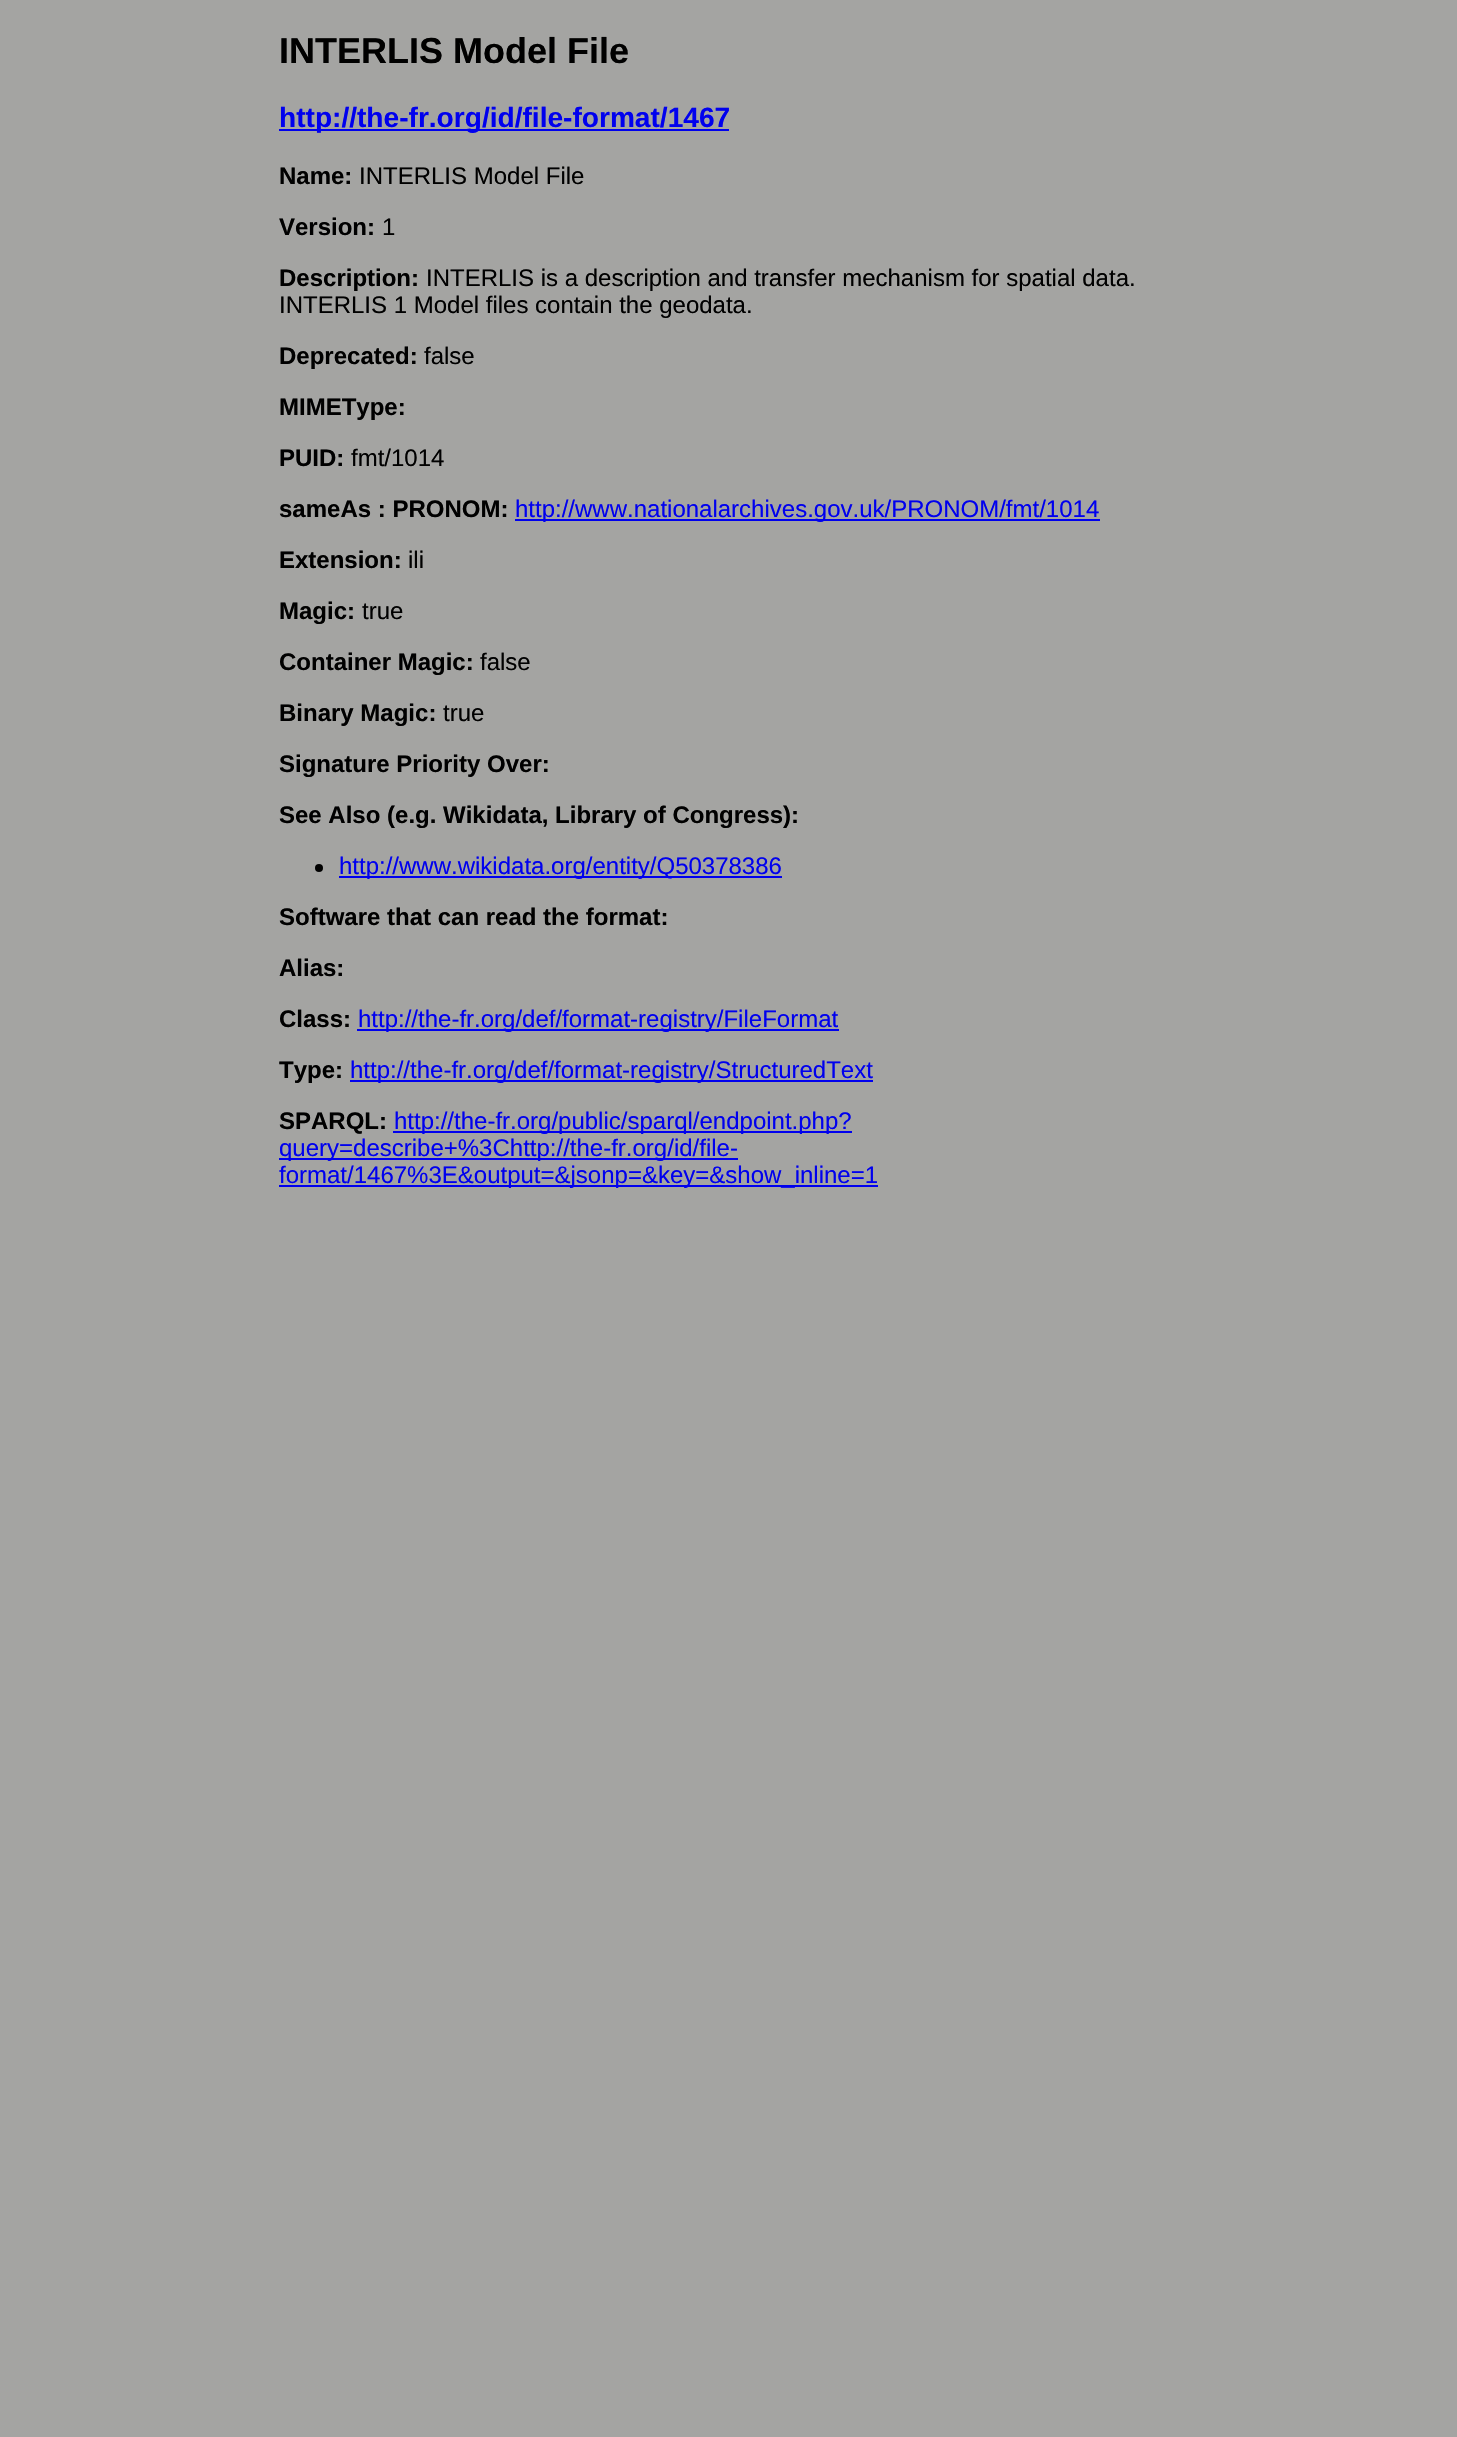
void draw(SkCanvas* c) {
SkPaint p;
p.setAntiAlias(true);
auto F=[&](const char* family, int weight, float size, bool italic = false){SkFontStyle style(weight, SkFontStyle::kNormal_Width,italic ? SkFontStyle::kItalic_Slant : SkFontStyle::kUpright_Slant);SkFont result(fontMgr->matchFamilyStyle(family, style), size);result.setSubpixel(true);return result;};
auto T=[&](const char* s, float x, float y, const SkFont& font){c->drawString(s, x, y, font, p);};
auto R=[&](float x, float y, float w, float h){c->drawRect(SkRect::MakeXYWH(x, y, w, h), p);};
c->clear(0xffa4a4a2);
auto f1 = F("Liberation Sans",700,36);
p.setColor(0xff000000);
T("INTERLIS Model File",279,63,f1);
p.setColor(0xff0000ee);
R(279,129,450,2);
auto f2 = F("Liberation Sans",700,28.1);
T("http://the-fr.org/id/file-format/1467",279,127,f2);
auto f3 = F("Liberation Sans",700,24);
p.setColor(0xff000000);
T("Name:",279,184,f3);
auto f4 = F("Liberation Sans",400,24);
T("INTERLIS Model File",359,184,f4);
T("Version:",279,235,f3);
T("1",382,235,f4);
T("Description:",279,286,f3);
T("INTERLIS is a description and transfer mechanism for spatial data.",426,286,f4);
T("INTERLIS 1 Model files contain the geodata.",279,313,f4);
T("Deprecated:",279,364,f3);
T("false",424,364,f4);
T("MIMEType:",279,415,f3);
T("PUID:",279,466,f3);
T("fmt/1014",351,466,f4);
T("sameAs : PRONOM:",279,517,f3);
p.setColor(0xff0000ee);
R(515,519,585,2);
T("http://www.nationalarchives.gov.uk/PRONOM/fmt/1014",515,517,f4);
p.setColor(0xff000000);
T("Extension:",279,568,f3);
T("ili",408,568,f4);
T("Magic:",279,619,f3);
T("true",362,619,f4);
T("Container Magic:",279,670,f3);
T("false",480,670,f4);
T("Binary Magic:",279,721,f3);
T("true",443,721,f4);
T("Signature Priority Over:",279,772,f3);
T("See Also (e.g. Wikidata, Library of Congress):",279,823,f3);
c->drawCircle(319,868,4,p);
p.setColor(0xff0000ee);
R(339,876,443,2);
T("http://www.wikidata.org/entity/Q50378386",339,874,f4);
p.setColor(0xff000000);
T("Software that can read the format:",279,925,f3);
T("Alias:",279,976,f3);
T("Class:",279,1027,f3);
p.setColor(0xff0000ee);
R(357,1029,482,2);
T("http://the-fr.org/def/format-registry/FileFormat",358,1027,f4);
p.setColor(0xff000000);
T("Type:",279,1078,f3);
p.setColor(0xff0000ee);
R(350,1080,523,2);
T("http://the-fr.org/def/format-registry/StructuredText",350,1078,f4);
p.setColor(0xff000000);
T("SPARQL:",279,1129,f3);
p.setColor(0xff0000ee);
R(393,1131,459,2);
T("http://the-fr.org/public/sparql/endpoint.php?",394,1129,f4);
R(279,1158,459,2);
T("query=describe+%3Chttp://the-fr.org/id/file-",279,1156,f4);
R(279,1185,599,2);
T("format/1467%3E&output=&jsonp=&key=&show_inline=1",279,1183,f4);
}
